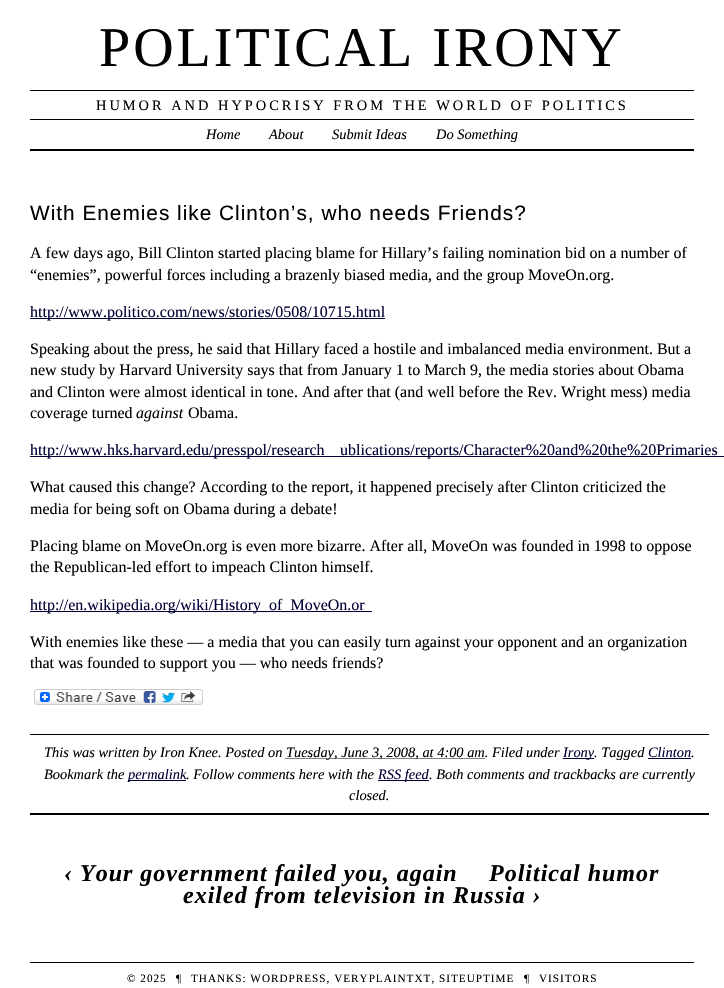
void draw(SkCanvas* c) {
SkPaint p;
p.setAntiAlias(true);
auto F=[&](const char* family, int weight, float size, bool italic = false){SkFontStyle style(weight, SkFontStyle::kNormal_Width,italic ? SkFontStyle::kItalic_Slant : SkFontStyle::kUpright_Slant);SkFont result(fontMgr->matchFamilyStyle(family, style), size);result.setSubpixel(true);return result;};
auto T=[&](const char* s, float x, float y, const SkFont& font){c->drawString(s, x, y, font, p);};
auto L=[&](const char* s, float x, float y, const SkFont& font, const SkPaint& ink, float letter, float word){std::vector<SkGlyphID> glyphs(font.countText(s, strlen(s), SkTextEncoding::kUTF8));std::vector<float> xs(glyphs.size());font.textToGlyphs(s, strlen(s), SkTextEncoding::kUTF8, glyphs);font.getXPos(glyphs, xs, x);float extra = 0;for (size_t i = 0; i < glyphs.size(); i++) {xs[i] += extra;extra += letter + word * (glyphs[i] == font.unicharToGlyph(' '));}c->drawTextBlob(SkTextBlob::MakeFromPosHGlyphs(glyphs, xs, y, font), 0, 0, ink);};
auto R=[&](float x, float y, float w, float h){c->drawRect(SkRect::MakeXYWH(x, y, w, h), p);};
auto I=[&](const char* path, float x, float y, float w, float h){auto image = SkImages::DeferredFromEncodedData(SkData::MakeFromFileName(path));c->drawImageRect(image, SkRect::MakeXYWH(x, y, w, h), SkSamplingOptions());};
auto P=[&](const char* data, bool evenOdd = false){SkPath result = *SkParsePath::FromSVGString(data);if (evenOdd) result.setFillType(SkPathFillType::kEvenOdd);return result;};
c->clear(0xffffffff);
auto f1 = F("Liberation Serif",400,56);
p.setColor(0xff000000);
L("POLITICAL IRONY",99,66,f1,p,3,0);
R(30,90,664,1);
auto f2 = F("Liberation Serif",400,14.4);
L("HUMOR AND HYPOCRISY FROM THE WORLD OF POLITICS",96,110,f2,p,3,0);
R(30,119,664,1);
R(30,149,664,2);
auto f3 = F("Liberation Serif",400,14.4,true);
T("Home",206,139,f3);
T("About",269,139,f3);
T("Submit Ideas",332,139,f3);
T("Do Something",436,139,f3);
auto f4 = F("Liberation Sans",400,20.8);
L("With Enemies like Clinton’s, who needs Friends?",30,220,f4,p,1,0);
auto f5 = F("Liberation Serif",400,16);
T("A few days ago, Bill Clinton started placing blame for Hillary’s failing nomination bid on a number of",30,258,f5);
T("“enemies”, powerful forces including a brazenly biased media, and the group MoveOn.org.",30,280,f5);
p.setColor(0xff000033);
R(30,318,355,1);
T("http://www.politico.com/news/stories/0508/10715.html",30,317,f5);
p.setColor(0xff000000);
T("Speaking about the press, he said that Hillary faced a hostile and imbalanced media environment. But a",30,354,f5);
T("new study by Harvard University says that from January 1 to March 9, the media stories about Obama",30,375,f5);
T("and Clinton were almost identical in tone. And after that (and well before the Rev. Wright mess) media",30,397,f5);
T("coverage turned",30,418,f5);
auto f6 = F("Liberation Serif",400,16,true);
T("against",136,418,f6);
T("Obama.",188,418,f5);
p.setColor(0xff000033);
R(30,456,694,1);
T("http://www.hks.harvard.edu/presspol/research",30,455,f5);
T("ublications/reports/Character%20and%20the%20Primaries",340,455,f5);
p.setColor(0xff000000);
T("What caused this change? According to the report, it happened precisely after Clinton criticized the",30,492,f5);
T("media for being soft on Obama during a debate!",30,514,f5);
T("Placing blame on MoveOn.org is even more bizarre. After all, MoveOn was founded in 1998 to oppose",30,551,f5);
T("the Republican-led effort to impeach Clinton himself.",30,572,f5);
p.setColor(0xff000033);
R(30,611,342,1);
T("http://en.wikipedia.org/wiki/History_of_MoveOn.or",30,610,f5);
p.setColor(0xff000000);
T("With enemies like these — a media that you can easily turn against your opponent and an organization",30,647,f5);
T("that was founded to support you — who needs friends?",30,668,f5);
I("1.png",34,689,169,16);
R(30,734,679,1);
R(30,813,679,2);
T("This was written by Iron Knee. Posted on",44,757,f3);
p.setStroke(true);
p.setStrokeWidth(1);
p.setPathEffect(SkDashPathEffect::Make({{1,1}}, 0));
c->drawPath(P("M285.5 758.5h199"),p);
p.setPathEffect(nullptr);
p.setStroke(false);
T("Tuesday, June 3, 2008, at 4:00 am. Filed under",286,757,f3);
p.setColor(0xff000033);
R(563,758,31,1);
T("Irony",563,757,f3);
p.setColor(0xff000000);
T(". Tagged",594,757,f3);
p.setColor(0xff000033);
T("Clinton",648,757,f3);
R(648,758,43,1);
p.setColor(0xff000000);
T(".",691,757,f3);
T("Bookmark the",44,779,f3);
p.setColor(0xff000033);
R(128,780,58,1);
T("permalink",128,779,f3);
p.setColor(0xff000000);
T(". Follow comments here with the",186,779,f3);
p.setColor(0xff000033);
R(378,780,51,1);
T("RSS feed",378,779,f3);
p.setColor(0xff000000);
T(". Both comments and trackbacks are currently",429,779,f3);
T("closed.",349,800,f3);
auto f7 = F("Liberation Serif",700,24,true);
L("‹ Your government failed you, again",64,881,f7,p,1,0);
L("Political humor",489,881,f7,p,1,0);
L("exiled from television in Russia ›",183,903,f7,p,1,0);
R(30,962,664,1);
auto f8 = F("Liberation Serif",400,11.2);
L("© 2025",127,982,f8,p,1,0);
L("¶",176,982,f8,p,1,0);
L("THANKS: WORDPRESS, VERYPLAINTXT, SITEUPTIME",191,982,f8,p,1,0);
L("¶",524,982,f8,p,1,0);
L("VISITORS",539,982,f8,p,1,0);
}
